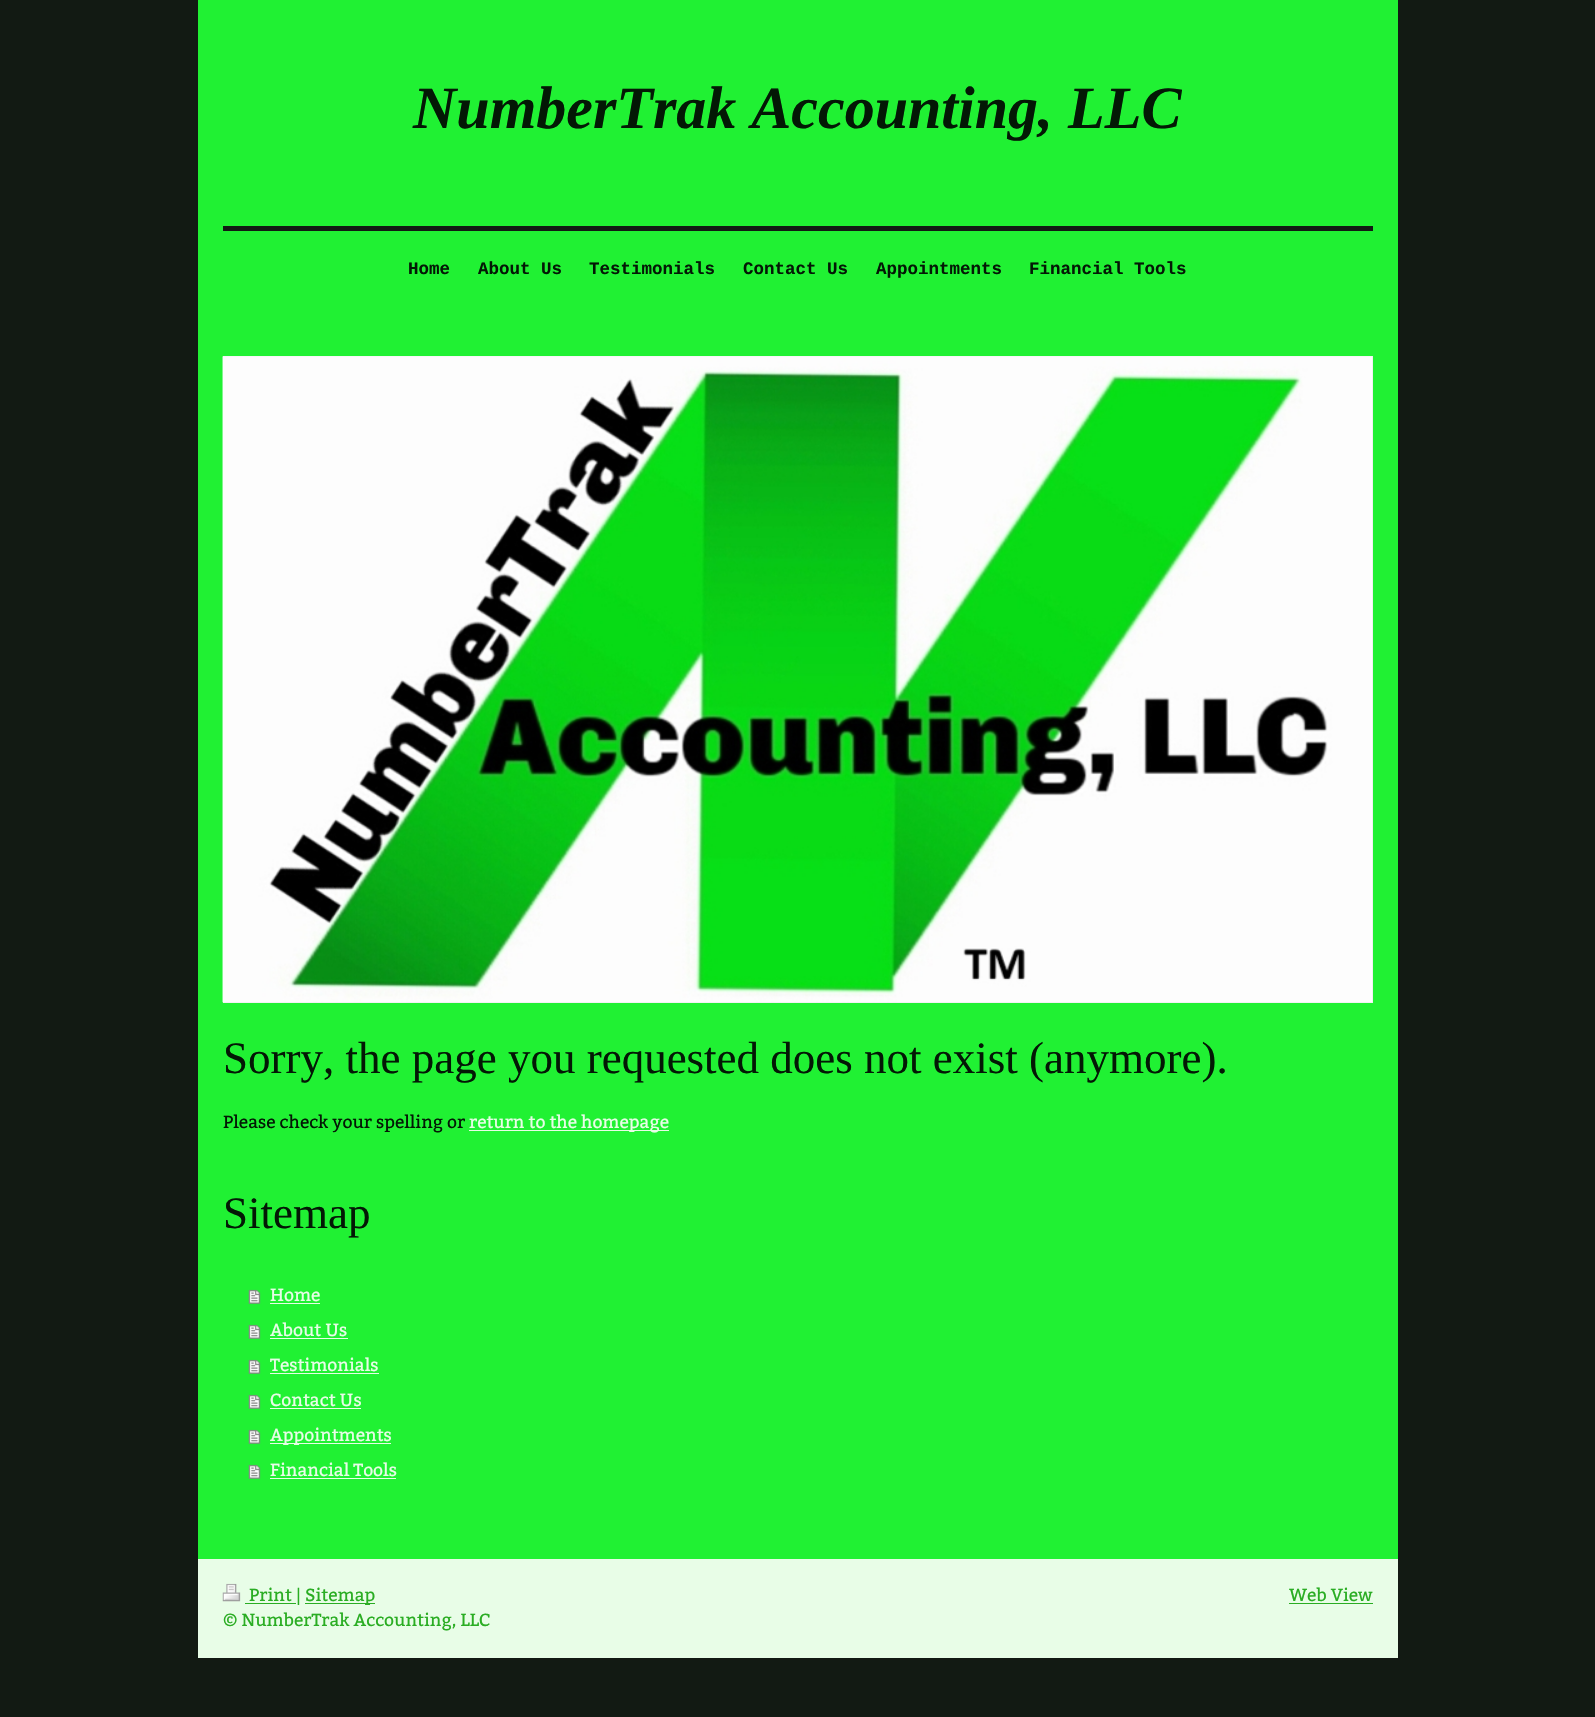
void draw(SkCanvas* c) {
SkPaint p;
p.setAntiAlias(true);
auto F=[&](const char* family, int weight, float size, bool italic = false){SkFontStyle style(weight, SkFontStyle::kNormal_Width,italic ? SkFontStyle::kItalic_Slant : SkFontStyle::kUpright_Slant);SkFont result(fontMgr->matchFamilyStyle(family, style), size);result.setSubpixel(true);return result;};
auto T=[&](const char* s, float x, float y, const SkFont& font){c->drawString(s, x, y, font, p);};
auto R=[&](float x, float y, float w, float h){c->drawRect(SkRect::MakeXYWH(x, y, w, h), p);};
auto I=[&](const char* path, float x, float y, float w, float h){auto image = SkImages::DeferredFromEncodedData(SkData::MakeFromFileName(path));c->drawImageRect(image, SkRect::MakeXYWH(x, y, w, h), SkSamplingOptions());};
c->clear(0xff121a13);
p.setColor(0xff20f133);
R(198,0,1200,1559);
auto f1 = F("Liberation Serif",700,60,true);
p.setColor(0xff031805);
T("NumberTrak Accounting, LLC",413,128,f1);
p.setColor(0xff121a13);
R(223,226,1150,5);
auto f2 = F("Liberation Mono",700,17.5);
p.setColor(0xff031805);
T("Home",408,274,f2);
T("About Us",478,274,f2);
T("Testimonials",589,274,f2);
T("Contact Us",743,274,f2);
T("Appointments",876,274,f2);
T("Financial Tools",1029,274,f2);
I("1.png",222,356,1,647);
p.setColor(0xffeeeeee);
R(223,356,1150,647);
I("2.png",222,356,1151,647);
auto f3 = F("Liberation Serif",400,45);
p.setColor(0xff031805);
T("Sorry, the page you requested does not exist (anymore).",223,1073,f3);
auto f4 = F("Bitter",400,17.5);
T("Please check your spelling or",223,1128,f4);
p.setColor(0xffe8fde7);
R(469,1130,200,1);
T("return to the homepage",469,1128,f4);
p.setColor(0xff031805);
T("Sitemap",223,1228,f3);
I("3.png",248,1289,13,15);
p.setColor(0xffe8fde7);
T("Home",270,1301,f4);
R(270,1303,50,1);
I("3.png",248,1324,13,15);
T("About Us",270,1336,f4);
R(270,1338,78,1);
I("3.png",248,1359,13,15);
T("Testimonials",270,1371,f4);
R(270,1373,109,1);
I("3.png",248,1394,13,15);
T("Contact Us",270,1406,f4);
R(270,1408,91,1);
I("3.png",248,1429,13,15);
R(270,1443,121,1);
T("Appointments",270,1441,f4);
I("3.png",248,1464,13,15);
T("Financial Tools",270,1476,f4);
R(270,1478,126,1);
R(198,1559,1200,99);
I("4.png",222,1583,19,19);
p.setColor(0xff2aad23);
R(245,1603,51,1);
T("Print |",249,1601,f4);
R(305,1603,70,1);
T("Sitemap",305,1601,f4);
T("© NumberTrak Accounting, LLC",223,1626,f4);
T("Web View",1289,1601,f4);
R(1289,1603,84,1);
}
